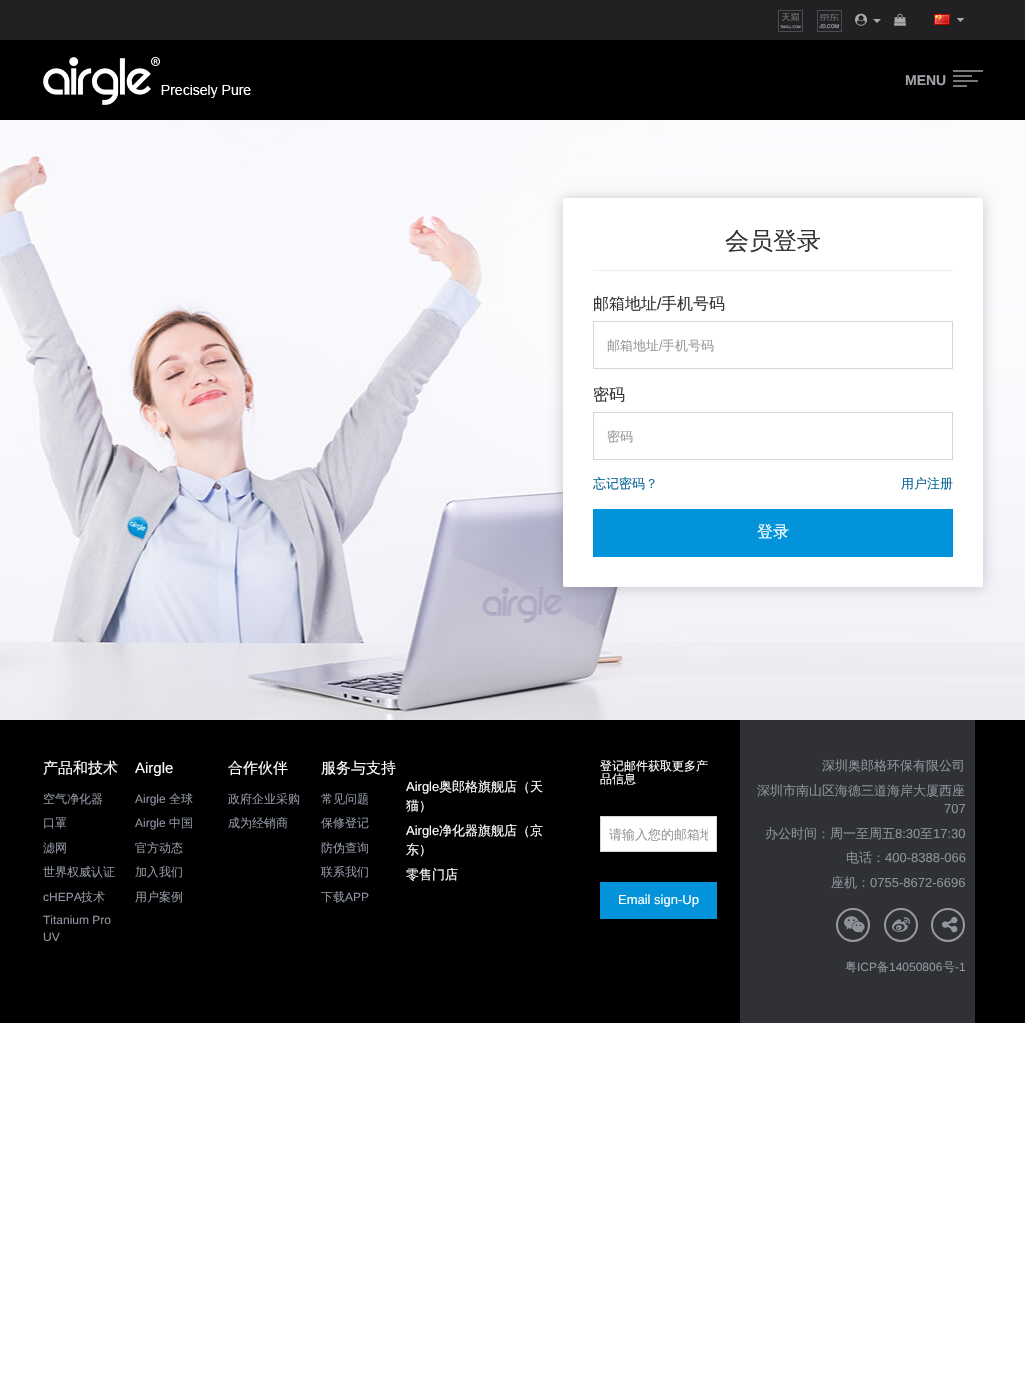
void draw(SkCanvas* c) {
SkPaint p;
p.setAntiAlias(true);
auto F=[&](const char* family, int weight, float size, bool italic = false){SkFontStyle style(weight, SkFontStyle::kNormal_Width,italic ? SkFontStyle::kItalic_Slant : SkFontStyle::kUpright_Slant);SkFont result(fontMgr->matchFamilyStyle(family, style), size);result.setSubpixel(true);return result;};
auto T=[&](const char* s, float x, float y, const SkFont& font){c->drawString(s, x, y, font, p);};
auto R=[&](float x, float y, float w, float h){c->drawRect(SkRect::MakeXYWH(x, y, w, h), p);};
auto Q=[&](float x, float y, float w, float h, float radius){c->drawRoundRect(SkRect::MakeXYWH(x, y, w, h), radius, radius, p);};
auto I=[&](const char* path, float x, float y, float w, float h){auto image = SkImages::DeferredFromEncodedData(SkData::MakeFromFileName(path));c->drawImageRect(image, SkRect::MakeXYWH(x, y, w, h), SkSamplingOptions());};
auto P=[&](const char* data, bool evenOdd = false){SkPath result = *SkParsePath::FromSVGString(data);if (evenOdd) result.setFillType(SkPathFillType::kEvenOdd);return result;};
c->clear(0xffffffff);
p.setColor(0xff212123);
R(0,0,1025,40);
I("1.png",778,10,25,22);
I("2.png",817,10,25,22);
I("3.png",855,13,12,13);
p.setColor(0xffaaaaaa);
c->drawPath(P("M873 19h8l-4 4z"),p);
I("4.png",894,13,12,13);
I("5.png",934,14,16,11);
I("6.png",957,18,7,4);
p.setColor(0xff000000);
R(0,40,1025,80);
I("7.png",43,57,208,48);
auto f1 = F("Liberation Sans",700,14);
p.setColor(0xffa1a3a9);
T("MENU",905,85,f1);
p.setColor(0xff777777);
R(953,70,30,2);
R(953,75,19,2);
R(953,80,25,2);
R(953,85,14,2);
I("8.png",0,120,1025,600);
p.setColor(0x33000000);
p.setMaskFilter(SkMaskFilter::MakeBlur(kNormal_SkBlurStyle, 7));
c->drawRoundRect(SkRect::MakeXYWH(563,199,420,389),2,2,p);
p.setMaskFilter(nullptr);
p.setColor(0xffffffff);
Q(563,198,420,389,2);
p.setColor(0xffeeeeee);
R(593,270,360,1);
auto f2 = F("WenQuanYi Zen Hei",500,24);
p.setColor(0xff333333);
T("会员登录",725,249,f2);
auto f3 = F("WenQuanYi Zen Hei",500,16);
T("邮箱地址",593,309,f3);
auto f4 = F("Liberation Sans",400,16);
T("/",657,309,f4);
T("手机号码",661,309,f3);
p.setStroke(true);
p.setStrokeWidth(1);
p.setColor(0xffd6d6d6);
c->drawRect(SkRect::MakeXYWH(593.5,321.5,359,47),p);
auto f5 = F("WenQuanYi Zen Hei",500,13);
p.setStroke(false);
p.setColor(0xff999999);
T("邮箱地址",607,350,f5);
auto f6 = F("Liberation Sans",400,13);
T("/",659,350,f6);
T("手机号码",662,350,f5);
p.setColor(0xff333333);
T("密码",593,400,f3);
p.setStroke(true);
p.setColor(0xffd6d6d6);
c->drawRect(SkRect::MakeXYWH(593.5,412.5,359,47),p);
p.setStroke(false);
p.setColor(0xff999999);
T("密码",607,441,f5);
p.setColor(0xff0b6798);
T("忘记密码？",593,488,f5);
T("用户注册",901,488,f5);
p.setColor(0xff0293db);
R(593,509,360,48);
p.setColor(0xffffffff);
T("登录",757,537,f3);
p.setColor(0xff000000);
R(0,720,1025,303);
auto f7 = F("WenQuanYi Zen Hei",500,15);
p.setColor(0xffffffff);
T("产品和技术",43,773,f7);
auto f8 = F("WenQuanYi Zen Hei",500,12);
p.setColor(0xff9096a2);
T("空气净化器",43,803,f8);
T("口罩",43,827,f8);
T("滤网",43,852,f8);
T("世界权威认证",43,876,f8);
auto f9 = F("Liberation Sans",400,12);
T("cHEPA",43,901,f9);
T("技术",81,901,f8);
T("Titanium Pro",43,924,f9);
T("UV",43,941,f9);
auto f10 = F("Liberation Sans",400,15);
p.setColor(0xffffffff);
T("Airgle",135,773,f10);
p.setColor(0xff9096a2);
T("Airgle",135,803,f9);
T("全球",169,803,f8);
T("Airgle",135,827,f9);
T("中国",169,827,f8);
T("官方动态",135,852,f8);
T("加入我们",135,876,f8);
T("用户案例",135,901,f8);
p.setColor(0xffffffff);
T("合作伙伴",228,773,f7);
p.setColor(0xff9096a2);
T("政府企业采购",228,803,f8);
T("成为经销商",228,827,f8);
p.setColor(0xffffffff);
T("服务与支持",321,773,f7);
p.setColor(0xff9096a2);
T("常见问题",321,803,f8);
T("保修登记",321,827,f8);
T("防伪查询",321,852,f8);
T("联系我们",321,876,f8);
T("下载",321,901,f8);
T("APP",345,901,f9);
p.setColor(0xffffffff);
T("Airgle",406,791,f6);
T("奥郎格旗舰店（天",439,791,f5);
T("猫）",406,810,f5);
T("Airgle",406,835,f6);
T("净化器旗舰店（京",439,835,f5);
T("东）",406,854,f5);
T("零售门店",406,879,f5);
T("登记邮件获取更多产",600,770,f8);
T("品信息",600,783,f8);
c->drawRect(SkRect::MakeXYWH(600.5,816.5,116,35),p);
p.setStroke(true);
p.setColor(0xffd6d6d6);
c->drawRect(SkRect::MakeXYWH(600.5,816.5,116,35),p);
c->save();
c->clipRect(SkRect::MakeXYWH(609,826,99,18));
p.setStroke(false);
p.setColor(0xff999999);
T("请输入您的邮箱地",609,839,f5);
c->restore();
p.setColor(0xff0293db);
R(600,882,117,37);
p.setColor(0xffffffff);
T("Email sign-Up",618,904,f6);
p.setColor(0xff2f3134);
R(740,720,235,303);
p.setColor(0xff8c919a);
T("深圳奥郎格环保有限公司",822,770,f5);
T("深圳市南山区海德三道海岸大厦西座",757,795,f5);
T("707",944,813,f6);
T("办公时间：周一至周五",765,838,f5);
T("8:30",895,838,f6);
T("至",920,838,f5);
T("17:30",933,838,f6);
T("电话：",846,862,f5);
T("400-8388-066",885,862,f6);
T("座机：",831,887,f5);
T("0755-8672-6696",870,887,f6);
p.setStroke(true);
p.setStrokeWidth(2);
p.setColor(0xff999999);
c->drawCircle(853,925,16,p);
I("9.png",844,916,21,17);
c->drawCircle(901,925,16,p);
I("10.png",892,917,18,15);
c->drawCircle(948,925,16,p);
I("11.png",942,916,16,17);
p.setStroke(false);
p.setColor(0xff9096a2);
T("粤",845,971,f8);
T("ICP",857,971,f9);
T("备",877,971,f8);
T("14050806",889,971,f9);
T("号",943,971,f8);
T("-1",955,971,f9);
}
